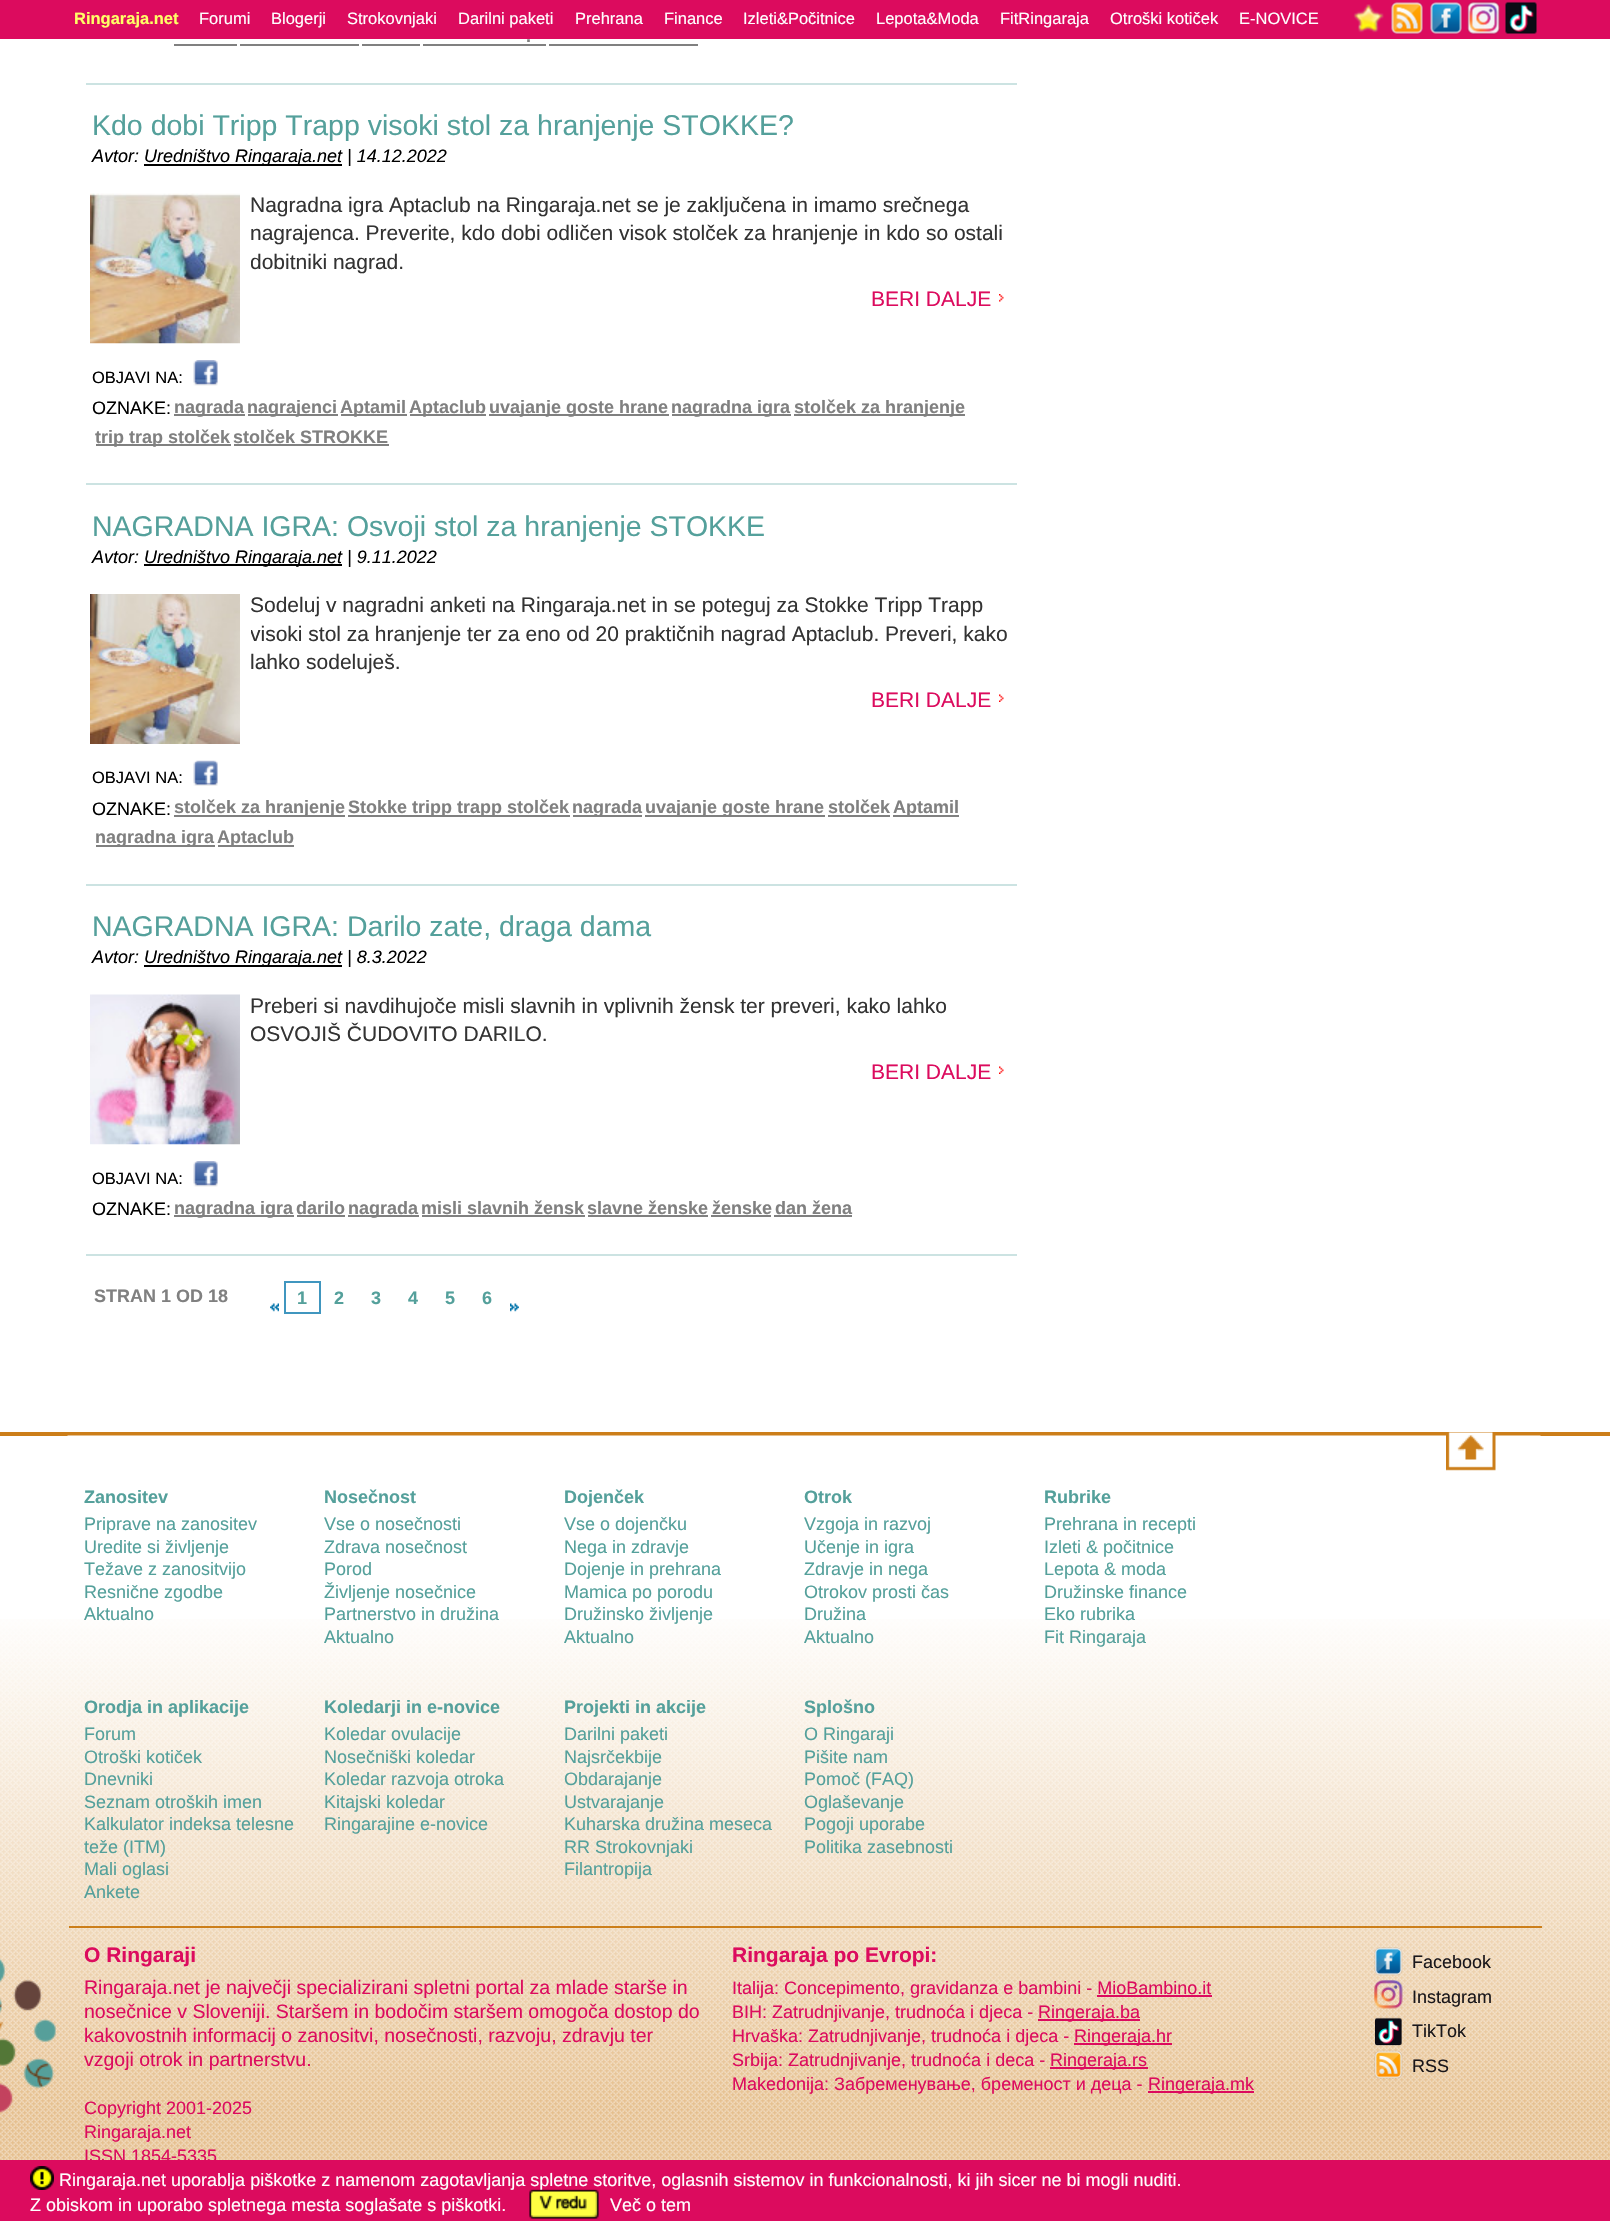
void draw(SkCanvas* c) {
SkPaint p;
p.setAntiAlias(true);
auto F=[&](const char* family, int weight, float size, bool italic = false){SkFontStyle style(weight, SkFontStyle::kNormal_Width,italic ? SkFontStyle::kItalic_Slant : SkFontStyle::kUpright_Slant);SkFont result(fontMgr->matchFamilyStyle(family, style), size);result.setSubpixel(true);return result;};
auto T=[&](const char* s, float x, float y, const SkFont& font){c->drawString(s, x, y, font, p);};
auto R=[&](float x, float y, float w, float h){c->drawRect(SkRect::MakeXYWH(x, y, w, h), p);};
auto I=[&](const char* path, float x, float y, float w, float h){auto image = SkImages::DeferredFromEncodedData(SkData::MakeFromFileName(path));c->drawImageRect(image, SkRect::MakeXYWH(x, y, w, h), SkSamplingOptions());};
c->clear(0xffffffff);
I("1.png",0,1619,1610,541);
p.setColor(0xffdc0b5e);
R(0,0,1610,39);
auto f1 = F("Liberation Sans",700,16.5);
p.setColor(0xffffff66);
T("Ringaraja.net",74,24,f1);
auto f2 = F("Liberation Sans",400,16.5);
p.setColor(0xffffffff);
T("Forumi",199,24,f2);
T("Blogerji",271,24,f2);
T("Strokovnjaki",347,24,f2);
T("Darilni paketi",458,24,f2);
T("Prehrana",575,24,f2);
T("Finance",664,24,f2);
T("Izleti&Počitnice",743,24,f2);
T("Lepota&Moda",876,24,f2);
T("FitRingaraja",1000,24,f2);
T("Otroški kotiček",1110,24,f2);
T("E-NOVICE",1239,24,f2);
I("2.png",1353,4,31,29);
I("3.png",1391,2,33,33);
I("4.png",1430,2,33,33);
I("5.png",1467,1,33,34);
I("6.png",1505,1,32,34);
p.setColor(0xffcce3e2);
R(86,83,931,2);
auto f3 = F("Liberation Sans",700,18);
p.setColor(0xff808080);
T(".",526,42,f3);
R(423,44,123,2);
R(174,44,63,2);
R(240,44,119,2);
R(362,44,58,2);
R(549,44,149,2);
p.setColor(0xffcce3e2);
R(86,483,931,2);
auto f4 = F("Liberation Sans",400,28.5);
p.setColor(0xff54a09b);
T("Kdo dobi Tripp Trapp visoki stol za hranjenje STOKKE?",92,135,f4);
auto f5 = F("Liberation Sans",400,18,true);
p.setColor(0xff000000);
T("Avtor:",92,162,f5);
R(144,164,198,2);
T("Uredništvo Ringaraja.net | 14.12.2022",144,162,f5);
I("7.png",90,193,150,151);
auto f6 = F("Liberation Sans",400,21);
p.setColor(0xff333333);
T("Nagradna igra Aptaclub na Ringaraja.net se je zaključena in imamo srečnega",250,212,f6);
T("nagrajenca. Preverite, kdo dobi odličen visok stolček za hranjenje in kdo so ostali",250,240,f6);
c->save();
c->clipRect(SkRect::MakeXYWH(251,191,766,129));
T("dobitniki nagrad.",250,269,f6);
c->restore();
p.setColor(0xffdc0b5e);
T("BERI DALJE",871,306,f6);
I("8.png",999,294,5,8);
p.setColor(0xff000000);
T("OBJAVI NA:",92,383,f2);
I("9.png",193,360,25,26);
p.setColor(0xff808080);
R(174,414,71,2);
T("nagrada",174,413,f3);
R(248,414,90,2);
T("nagrajenci",247,413,f3);
R(341,414,66,2);
T("Aptamil",340,413,f3);
R(410,414,76,2);
T("Aptaclub",409,413,f3);
R(489,414,180,2);
T("uvajanje goste hrane",489,413,f3);
R(672,414,119,2);
T("nagradna igra",671,413,f3);
R(794,414,171,2);
T("stolček za hranjenje",794,413,f3);
R(96,444,135,2);
T("trip trap stolček",95,443,f3);
T("stolček STROKKE",233,443,f3);
R(234,444,155,2);
auto f7 = F("Liberation Sans",400,18);
p.setColor(0xff000000);
T("OZNAKE:",92,414,f7);
p.setColor(0xffcce3e2);
R(86,884,931,2);
p.setColor(0xff54a09b);
T("NAGRADNA IGRA: Osvoji stol za hranjenje STOKKE",92,536,f4);
p.setColor(0xff000000);
T("Avtor:",92,563,f5);
R(144,564,198,2);
T("Uredništvo Ringaraja.net | 9.11.2022",144,563,f5);
I("10.png",90,594,150,150);
p.setColor(0xff333333);
T("Sodeluj v nagradni anketi na Ringaraja.net in se poteguj za Stokke Tripp Trapp",250,612,f6);
c->save();
c->clipRect(SkRect::MakeXYWH(251,591,766,129));
T("visoki stol za hranjenje ter za eno od 20 praktičnih nagrad Aptaclub. Preveri, kako",250,641,f6);
c->restore();
T("lahko sodeluješ.",250,669,f6);
p.setColor(0xffdc0b5e);
T("BERI DALJE",871,707,f6);
I("11.png",999,694,5,8);
p.setColor(0xff000000);
T("OBJAVI NA:",92,783,f2);
I("12.png",193,760,25,26);
p.setColor(0xff808080);
R(174,815,171,2);
T("stolček za hranjenje",174,813,f3);
R(348,815,222,2);
T("Stokke tripp trapp stolček",348,813,f3);
R(573,815,69,2);
T("nagrada",572,813,f3);
R(645,815,180,2);
T("uvajanje goste hrane",645,813,f3);
T("stolček",828,813,f3);
R(828,815,62,2);
R(893,815,66,2);
T("Aptamil",893,813,f3);
R(96,845,119,2);
T("nagradna igra",95,843,f3);
R(218,845,76,2);
T("Aptaclub",217,843,f3);
p.setColor(0xff000000);
T("OZNAKE:",92,815,f7);
p.setColor(0xffcce3e2);
R(86,1254,931,2);
p.setColor(0xff54a09b);
T("NAGRADNA IGRA: Darilo zate, draga dama",92,936,f4);
p.setColor(0xff000000);
T("Avtor:",92,963,f5);
R(144,965,198,2);
T("Uredništvo Ringaraja.net | 8.3.2022",144,963,f5);
I("13.png",90,994,150,151);
p.setColor(0xff333333);
T("Preberi si navdihujoče misli slavnih in vplivnih žensk ter preveri, kako lahko",250,1013,f6);
c->save();
c->clipRect(SkRect::MakeXYWH(251,992,766,100));
T("OSVOJIŠ ČUDOVITO DARILO.",250,1041,f6);
c->restore();
p.setColor(0xffdc0b5e);
T("BERI DALJE",871,1079,f6);
I("11.png",999,1066,5,8);
p.setColor(0xff000000);
T("OBJAVI NA:",92,1184,f2);
I("9.png",193,1161,25,26);
T("OZNAKE:",92,1215,f7);
p.setColor(0xff808080);
R(174,1215,120,2);
T("nagradna igra",174,1214,f3);
T("darilo",296,1214,f3);
R(297,1215,48,2);
R(348,1215,71,2);
T("nagrada",348,1214,f3);
T("misli slavnih žensk",421,1214,f3);
R(422,1215,163,2);
T("slavne ženske",587,1214,f3);
R(588,1215,120,2);
T("ženske",712,1214,f3);
R(711,1215,60,2);
T("dan žena",775,1214,f3);
R(774,1215,78,2);
T("STRAN 1 OD 18",94,1302,f3);
p.setStroke(true);
p.setStrokeWidth(2);
p.setColor(0xff4096bf);
c->drawRect(SkRect::MakeXYWH(285,1282,35,31),p);
p.setStroke(false);
p.setColor(0xff54a09b);
T("1",297,1304,f3);
T("2",334,1304,f3);
T("3",371,1304,f3);
T("4",408,1304,f3);
T("5",445,1304,f3);
T("6",482,1304,f3);
I("14.png",270,1303,9,9);
I("15.png",510,1303,9,9);
p.setColor(0xffcc7e19);
R(69,1926,1473,2);
R(0,1432,1610,4);
I("16.png",67,1435,1474,1);
I("17.png",1446,1432,50,39);
p.setColor(0xff54a09b);
T("Zanositev",84,1503,f3);
T("Priprave na zanositev",84,1530,f7);
T("Uredite si življenje",84,1553,f7);
T("Težave z zanositvijo",84,1575,f7);
T("Resnične zgodbe",84,1598,f7);
T("Aktualno",84,1620,f7);
T("Nosečnost",324,1503,f3);
T("Vse o nosečnosti",324,1530,f7);
T("Zdrava nosečnost",324,1553,f7);
T("Porod",324,1575,f7);
T("Življenje nosečnice",324,1598,f7);
T("Partnerstvo in družina",324,1620,f7);
T("Aktualno",324,1643,f7);
T("Dojenček",564,1503,f3);
T("Vse o dojenčku",564,1530,f7);
T("Nega in zdravje",564,1553,f7);
T("Dojenje in prehrana",564,1575,f7);
T("Mamica po porodu",564,1598,f7);
T("Družinsko življenje",564,1620,f7);
T("Aktualno",564,1643,f7);
T("Otrok",804,1503,f3);
T("Vzgoja in razvoj",804,1530,f7);
T("Učenje in igra",804,1553,f7);
T("Zdravje in nega",804,1575,f7);
T("Otrokov prosti čas",804,1598,f7);
T("Družina",804,1620,f7);
T("Aktualno",804,1643,f7);
T("Rubrike",1044,1503,f3);
T("Prehrana in recepti",1044,1530,f7);
T("Izleti & počitnice",1044,1553,f7);
T("Lepota & moda",1044,1575,f7);
T("Družinske finance",1044,1598,f7);
T("Eko rubrika",1044,1620,f7);
T("Fit Ringaraja",1044,1643,f7);
T("Orodja in aplikacije",84,1713,f3);
T("Forum",84,1740,f7);
T("Otroški kotiček",84,1763,f7);
T("Dnevniki",84,1785,f7);
T("Seznam otroških imen",84,1808,f7);
T("Kalkulator indeksa telesne",84,1830,f7);
T("teže (ITM)",84,1853,f7);
T("Mali oglasi",84,1875,f7);
T("Ankete",84,1898,f7);
T("Koledarji in e-novice",324,1713,f3);
T("Koledar ovulacije",324,1740,f7);
T("Nosečniški koledar",324,1763,f7);
T("Koledar razvoja otroka",324,1785,f7);
T("Kitajski koledar",324,1808,f7);
T("Ringarajine e-novice",324,1830,f7);
T("Projekti in akcije",564,1713,f3);
T("Darilni paketi",564,1740,f7);
T("Najsrčekbije",564,1763,f7);
T("Obdarajanje",564,1785,f7);
T("Ustvarajanje",564,1808,f7);
T("Kuharska družina meseca",564,1830,f7);
T("RR Strokovnjaki",564,1853,f7);
T("Filantropija",564,1875,f7);
T("Splošno",804,1713,f3);
T("О Ringaraji",804,1740,f7);
T("Pišite nam",804,1763,f7);
T("Pomoč (FAQ)",804,1785,f7);
T("Oglaševanje",804,1808,f7);
T("Pogoji uporabe",804,1830,f7);
T("Politika zasebnosti",804,1853,f7);
I("18.png",0,1958,56,155);
auto f8 = F("Liberation Sans",700,21);
p.setColor(0xffdc0b5e);
T("O Ringaraji",84,1962,f8);
auto f9 = F("Liberation Sans",400,19.5);
T("Ringaraja.net je največji specializirani spletni portal za mlade starše in",84,1994,f9);
T("nosečnice v Sloveniji. Staršem in bodočim staršem omogoča dostop do",84,2018,f9);
T("kakovostnih informacij o zanositvi, nosečnosti, razvoju, zdravju ter",84,2042,f9);
T("vzgoji otrok in partnerstvu.",84,2066,f9);
T("Copyright 2001-2025",84,2114,f7);
T("Ringaraja.net",84,2138,f7);
T("ISSN 1854-5335",84,2162,f7);
T("Ringaraja po Evropi:",732,1962,f8);
T("Italija: Concepimento, gravidanza e bambini - MioBambino.it",732,1994,f7);
R(1097,1995,115,2);
T("BIH: Zatrudnjivanje, trudnoća i djeca -",732,2018,f7);
R(1038,2019,102,2);
T("Ringeraja.ba",1038,2018,f7);
T("Hrvaška: Zatrudnjivanje, trudnoća i djeca -",732,2042,f7);
R(1074,2043,98,2);
T("Ringeraja.hr",1074,2042,f7);
T("Srbija: Zatrudnjivanje, trudnoća i deca -",732,2066,f7);
R(1050,2067,98,2);
T("Ringeraja.rs",1050,2066,f7);
T("Makedonija: Забременување, бременост и деца -",732,2090,f7);
R(1148,2091,106,2);
T("Ringeraja.mk",1148,2090,f7);
I("19.png",1374,1947,29,29);
I("20.png",1374,1980,29,29);
I("21.png",1375,2017,27,29);
I("22.png",1374,2050,29,29);
p.setColor(0xff1a171b);
T("Facebook",1412,1968,f7);
T("Instagram",1412,2003,f7);
T("TikTok",1412,2037,f7);
T("RSS",1412,2072,f7);
p.setColor(0xffdc0b5e);
R(0,2160,1610,61);
I("23.png",30,2166,24,24);
p.setColor(0xffffffff);
T("Ringaraja.net uporablja piškotke z namenom zagotavljanja spletne storitve, oglasnih sistemov in funkcionalnosti, ki jih sicer ne bi mogli nuditi.",59,2186,f7);
T("Z obiskom in uporabo spletnega mesta soglašate s piškotki.",30,2211,f7);
I("24.png",529,2189,70,30);
T("Več o tem",610,2211,f7);
}
